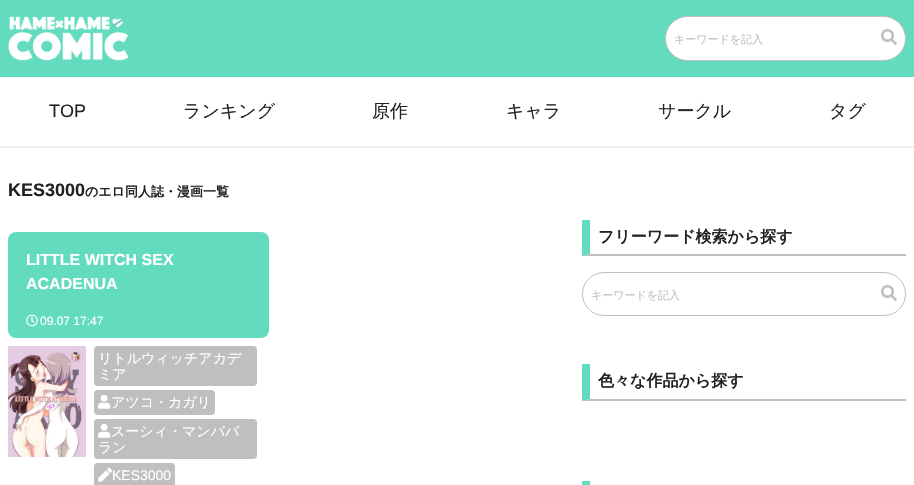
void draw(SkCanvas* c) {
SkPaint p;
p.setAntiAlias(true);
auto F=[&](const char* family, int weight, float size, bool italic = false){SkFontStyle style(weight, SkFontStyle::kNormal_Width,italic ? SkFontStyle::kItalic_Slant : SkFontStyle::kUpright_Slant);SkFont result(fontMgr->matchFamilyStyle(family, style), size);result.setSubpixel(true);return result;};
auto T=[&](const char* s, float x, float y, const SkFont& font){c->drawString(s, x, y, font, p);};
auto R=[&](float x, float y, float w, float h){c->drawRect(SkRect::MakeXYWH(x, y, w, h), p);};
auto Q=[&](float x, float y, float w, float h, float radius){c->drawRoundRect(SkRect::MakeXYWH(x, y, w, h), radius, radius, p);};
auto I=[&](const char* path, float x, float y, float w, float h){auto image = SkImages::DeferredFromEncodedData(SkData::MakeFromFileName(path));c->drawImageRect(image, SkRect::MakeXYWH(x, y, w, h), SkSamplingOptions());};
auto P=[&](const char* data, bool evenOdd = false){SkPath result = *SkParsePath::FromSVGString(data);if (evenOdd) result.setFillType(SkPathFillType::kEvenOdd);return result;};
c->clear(0xffffffff);
p.setColor(0xff62dbbf);
R(0,0,914,77);
I("1.png",8,16,120,45);
p.setColor(0xffffffff);
c->drawRoundRect(SkRect::MakeXYWH(665.5,16.5,240,44),22,22,p);
p.setStroke(true);
p.setStrokeWidth(1);
p.setColor(0xffbfbfbf);
c->drawRoundRect(SkRect::MakeXYWH(665.5,16.5,240,44),22,22,p);
auto f1 = F("WenQuanYi Zen Hei",500,11);
p.setStroke(false);
T("キーワードを記入",674,43,f1);
I("2.png",881,29,16,16);
p.setColor(0xffefefef);
R(0,146,914,2);
auto f2 = F("Liberation Sans",400,18);
p.setColor(0xff222222);
T("TOP",49,117,f2);
auto f3 = F("WenQuanYi Zen Hei",500,18);
T("ランキング",183,117,f3);
T("原作",372,117,f3);
T("キャラ",506,117,f3);
T("サークル",658,117,f3);
T("タグ",829,117,f3);
auto f4 = F("Liberation Sans",700,18);
T("KES3000",8,196,f4);
auto f5 = F("WenQuanYi Zen Hei",700,13);
T("のエロ同人誌・漫画一覧",85,196,f5);
p.setColor(0xff62dbbf);
Q(8,232,261,106,8);
auto f6 = F("Liberation Sans",700,16);
p.setColor(0xffffffff);
T("LITTLE WITCH SEX",26,265,f6);
T("ACADENUA",26,289,f6);
I("3.png",26,314,12,13);
auto f7 = F("Liberation Sans",400,12);
T("09.07 17:47",40,325,f7);
I("4.png",8,346,78,111);
p.setColor(0xffbfbfbf);
Q(94,346,163,40,4);
auto f8 = F("WenQuanYi Zen Hei",500,14);
p.setColor(0xffffffff);
T("リトルウィッチアカデ",98,363,f8);
T("ミア",98,379,f8);
p.setColor(0xffbfbfbf);
Q(94,390,121,25,4);
I("5.png",98,394,13,15);
p.setColor(0xffffffff);
T("アツコ・カガリ",111,407,f8);
p.setColor(0xffbfbfbf);
Q(94,419,163,40,4);
I("5.png",98,423,13,15);
p.setColor(0xffffffff);
T("スーシィ・マンババ",111,436,f8);
T("ラン",98,452,f8);
p.setColor(0xffbfbfbf);
Q(94,463,81,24,4);
I("6.png",98,467,14,15);
auto f9 = F("Liberation Sans",400,14);
p.setColor(0xffffffff);
T("KES3000",112,480,f9);
p.setColor(0xffbfbfbf);
c->drawPath(P("M906 256h-324l8-2h316z"),p);
p.setColor(0xff62dbbf);
c->drawPath(P("M582 256v-36h8v34z"),p);
auto f10 = F("WenQuanYi Zen Hei",700,16);
p.setColor(0xff222222);
T("フリーワード検索から探す",598,242,f10);
p.setStroke(true);
p.setColor(0xffbfbfbf);
c->drawRoundRect(SkRect::MakeXYWH(582.5,272.5,323,43),21.5,21.5,p);
p.setStroke(false);
T("キーワードを記入",591,299,f1);
I("2.png",881,285,16,16);
c->drawPath(P("M906 401h-324l8-2h316z"),p);
p.setColor(0xff62dbbf);
c->drawPath(P("M582 401v-37h8v35z"),p);
p.setColor(0xff222222);
T("色々な作品から探す",598,386,f10);
p.setColor(0xff62dbbf);
c->drawPath(P("M582 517v-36h8v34z"),p);
}
